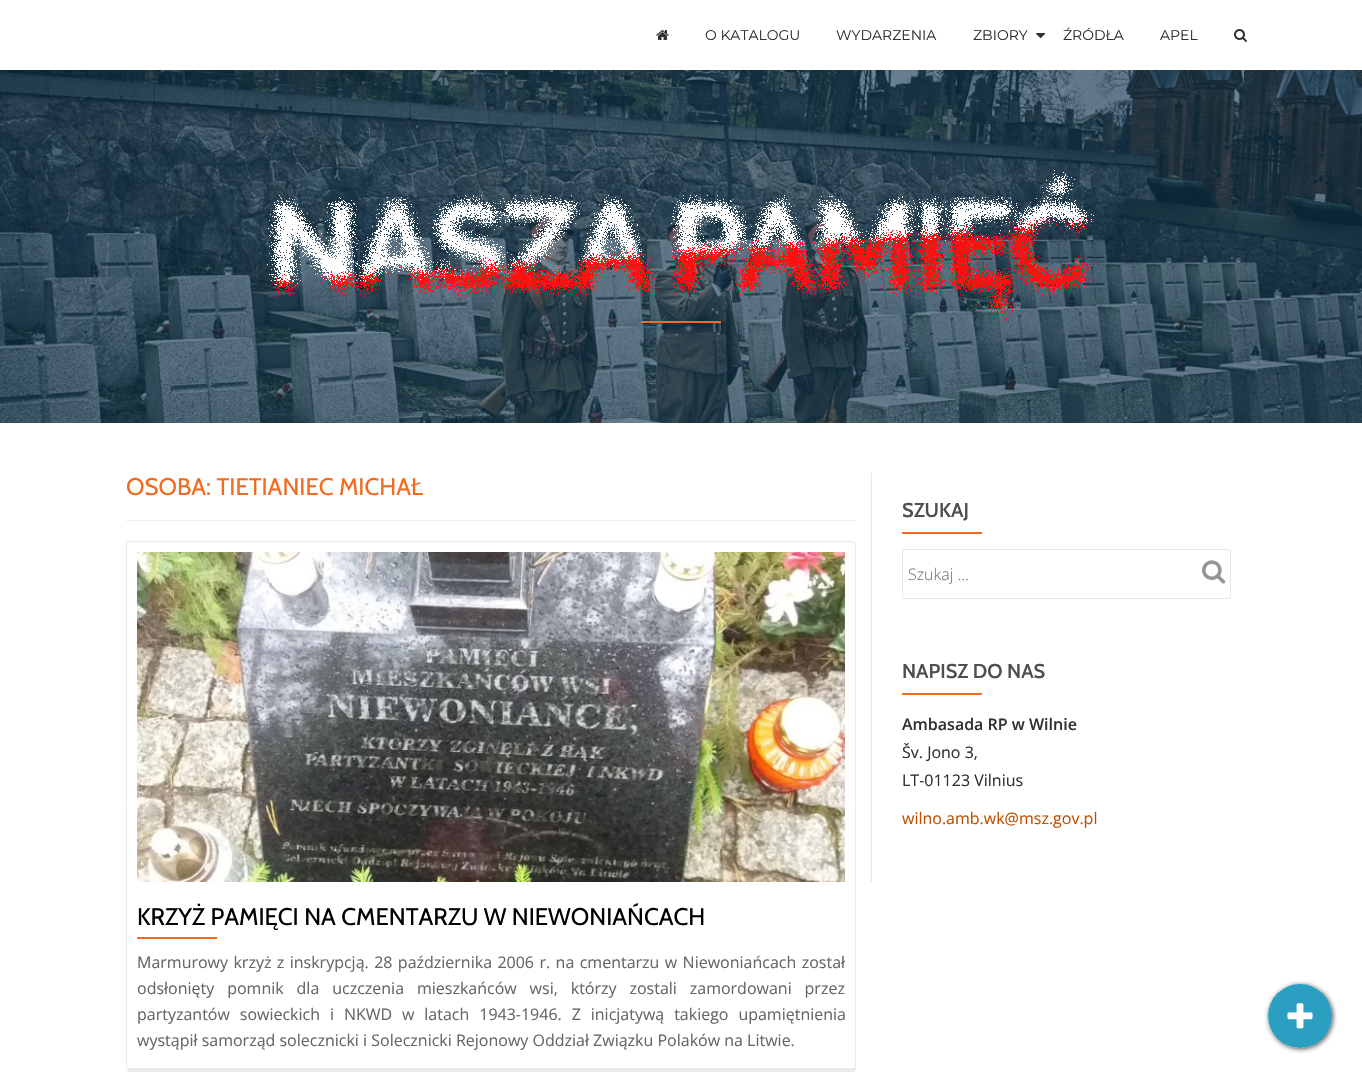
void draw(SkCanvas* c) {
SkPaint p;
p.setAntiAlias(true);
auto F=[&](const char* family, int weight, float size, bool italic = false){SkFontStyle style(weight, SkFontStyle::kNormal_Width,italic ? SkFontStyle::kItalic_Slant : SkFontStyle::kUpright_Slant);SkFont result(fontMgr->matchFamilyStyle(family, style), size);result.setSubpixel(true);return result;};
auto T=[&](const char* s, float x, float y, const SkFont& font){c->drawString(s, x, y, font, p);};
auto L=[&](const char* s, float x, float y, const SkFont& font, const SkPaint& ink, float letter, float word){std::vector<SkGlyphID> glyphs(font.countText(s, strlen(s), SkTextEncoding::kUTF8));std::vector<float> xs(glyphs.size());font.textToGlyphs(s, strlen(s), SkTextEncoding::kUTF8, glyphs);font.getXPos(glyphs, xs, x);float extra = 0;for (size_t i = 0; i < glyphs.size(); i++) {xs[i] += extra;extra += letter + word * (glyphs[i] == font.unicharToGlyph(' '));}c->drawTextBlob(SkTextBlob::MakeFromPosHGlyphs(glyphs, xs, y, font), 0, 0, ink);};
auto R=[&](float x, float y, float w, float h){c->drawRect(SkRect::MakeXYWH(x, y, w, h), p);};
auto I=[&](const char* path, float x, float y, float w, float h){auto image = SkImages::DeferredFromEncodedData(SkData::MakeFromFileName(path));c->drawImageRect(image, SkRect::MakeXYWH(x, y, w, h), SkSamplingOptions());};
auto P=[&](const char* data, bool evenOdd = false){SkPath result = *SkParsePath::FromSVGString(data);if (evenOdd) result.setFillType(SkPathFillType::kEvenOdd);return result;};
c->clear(0xffffffff);
I("1.png",656,30,13,10);
auto f1 = F("Montserrat",400,14);
p.setColor(0xff313131);
T("O KATALOGU",705,40,f1);
T("WYDARZENIA",836,40,f1);
T("ZBIORY",973,40,f1);
I("2.png",1036,33,10,6);
T("ŹRÓDŁA",1063,40,f1);
T("APEL",1160,40,f1);
I("3.png",1234,29,13,13);
I("4.png",0,70,1362,353);
I("5.png",267,170,829,151);
p.setColor(0xfff16c20);
R(641,321,80,2);
p.setColor(0xffeeeeee);
R(126,520,730,1);
auto f2 = F("Cabin",400,24);
p.setColor(0xfff16c20);
T("OSOBA: TIETIANIEC MICHAŁ",126,495,f2);
p.setStroke(true);
p.setStrokeWidth(1);
p.setColor(0xffeaeaea);
c->drawRoundRect(SkRect::MakeXYWH(126.5,541.5,729,530),2.5,2.5,p);
p.setStroke(false);
R(128,1068,727,3);
I("6.png",137,552,708,330);
p.setColor(0xff000000);
T("KRZYŻ PAMIĘCI NA CMENTARZU W NIEWONIAŃCACH",137,925,f2);
p.setColor(0xfff16c20);
R(137,937,80,2);
auto f3 = F("Open Sans",400,16);
p.setColor(0xff666666);
L("Marmurowy krzyż z inskrypcją. 28 października 2006 r. na cmentarzu w Niewoniańcach został",137,968,f3,p,0,1.25);
L("odsłonięty pomnik dla uczczenia mieszkańców wsi, którzy zostali zamordowani przez",137,994,f3,p,0,8.75);
L("partyzantów sowieckich i NKWD w latach 1943-1946. Z inicjatywą takiego upamiętnienia",137,1020,f3,p,0,5.75);
T("wystąpił samorząd solecznicki i Solecznicki Rejonowy Oddział Związku Polaków na Litwie.",137,1046,f3);
p.setColor(0xffe7e7e7);
R(871,473,1,409);
auto f4 = F("Cabin",600,20);
p.setColor(0xff4f4f4f);
T("SZUKAJ",902,517,f4);
p.setColor(0xfff16c20);
R(902,532,80,2);
p.setStroke(true);
p.setColor(0xffe7e7e7);
c->drawRoundRect(SkRect::MakeXYWH(902.5,549.5,328,49),2.5,2.5,p);
auto f5 = F("Open Sans",300,16);
p.setStroke(false);
p.setColor(0xff757575);
T("Szukaj …",908,580,f5);
I("7.png",1202,560,24,24);
p.setColor(0xff4f4f4f);
T("NAPISZ DO NAS",902,678,f4);
p.setColor(0xfff16c20);
R(902,693,80,2);
auto f6 = F("Open Sans",600,16);
p.setColor(0xff313131);
T("Ambasada RP w Wilnie",902,730,f6);
T("Šv. Jono 3,",902,758,f3);
T("LT-01123 Vilnius",902,786,f3);
p.setColor(0xffbe5000);
T("wilno.amb.wk@msz.gov.pl",902,824,f3);
c->save();
c->clipPath(P("M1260 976h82v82h-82zm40 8c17.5 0 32 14.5 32 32c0 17.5-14.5 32-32 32c-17.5 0-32-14.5-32-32c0-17.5 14.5-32 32-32z",true),true);
p.setColor(0xb3000000);
p.setMaskFilter(SkMaskFilter::MakeBlur(kNormal_SkBlurStyle, 2.5));
c->drawRoundRect(SkRect::MakeXYWH(1269,985,64,64),32,32,p);
p.setMaskFilter(nullptr);
c->restore();
p.setColor(0xe61395ba);
c->drawCircle(1300,1016,32,p);
I("8.png",1287,1003,26,26);
}
